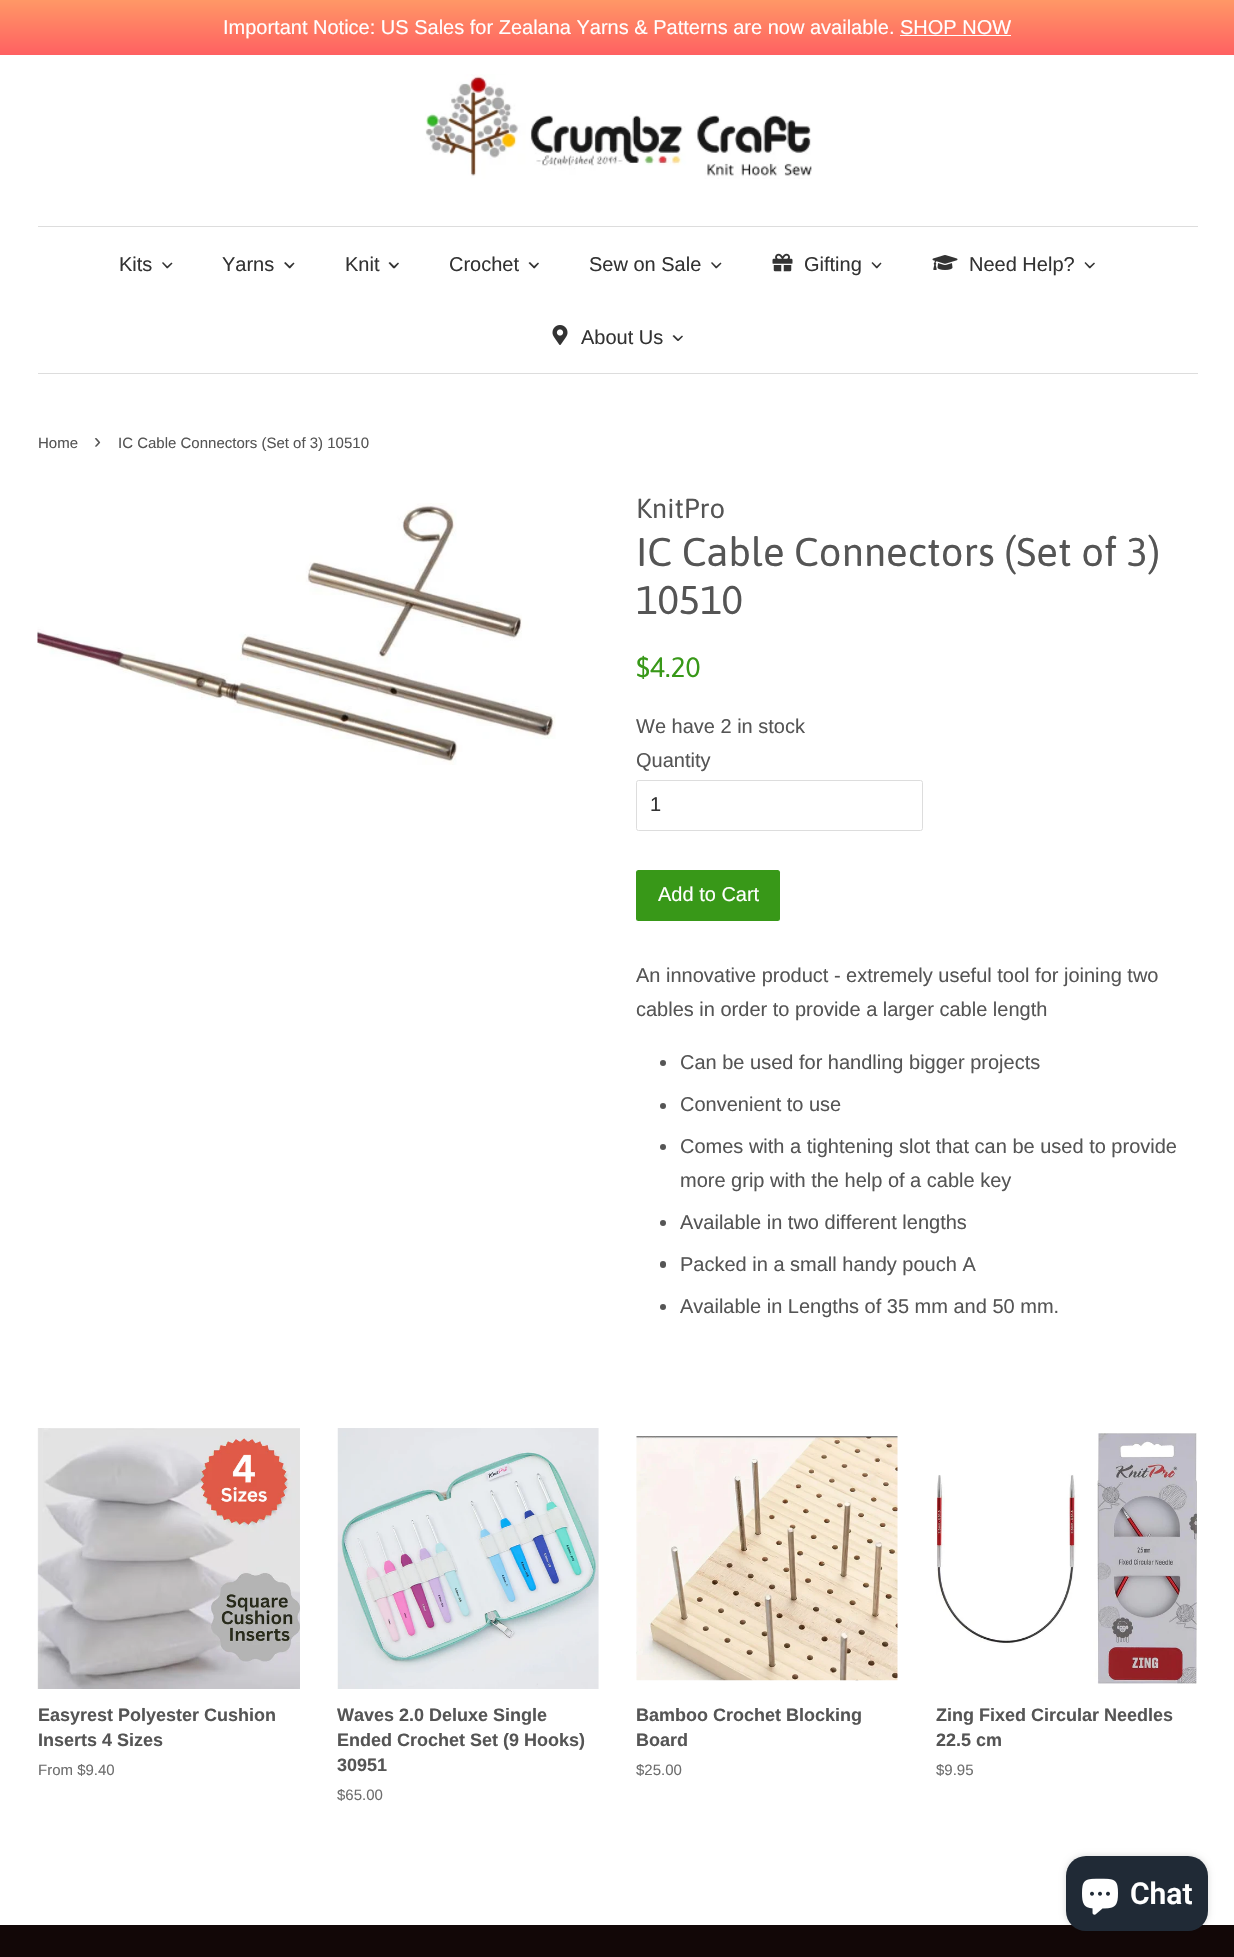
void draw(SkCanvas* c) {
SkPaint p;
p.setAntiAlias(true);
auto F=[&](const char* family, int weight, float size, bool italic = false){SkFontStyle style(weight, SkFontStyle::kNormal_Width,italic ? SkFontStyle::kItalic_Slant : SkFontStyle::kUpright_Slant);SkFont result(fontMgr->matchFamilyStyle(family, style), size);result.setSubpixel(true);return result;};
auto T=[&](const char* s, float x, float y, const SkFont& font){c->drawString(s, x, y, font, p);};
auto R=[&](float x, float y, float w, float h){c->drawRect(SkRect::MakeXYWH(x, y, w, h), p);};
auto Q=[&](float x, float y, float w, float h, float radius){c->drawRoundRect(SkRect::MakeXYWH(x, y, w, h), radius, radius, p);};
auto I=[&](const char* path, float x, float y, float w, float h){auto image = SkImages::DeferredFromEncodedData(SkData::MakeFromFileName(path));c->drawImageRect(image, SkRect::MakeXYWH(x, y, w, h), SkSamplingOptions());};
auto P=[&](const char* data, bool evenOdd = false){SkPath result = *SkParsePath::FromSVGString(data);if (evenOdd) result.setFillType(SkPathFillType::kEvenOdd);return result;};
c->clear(0xffffffff);
{
const SkColor colors[] = {0xffff6162,0xffff9766};
const float stops[] = {0,1};
const SkPoint ends[] = {{618,55}, {618,0}};
p.setShader(SkGradientShader::MakeLinear(ends, colors, stops, 2, SkTileMode::kClamp));
p.setAlpha(255);
}
R(0,0,1234,55);
auto f1 = F("Liberation Sans",400,20);
p.setShader(nullptr);
p.setColor(0xffffffff);
T("Important Notice: US Sales for Zealana Yarns & Patterns are now available. SHOP NOW",223,34,f1);
R(900,35,111,1);
I("1.png",425,74,387,105);
p.setColor(0xffdddddd);
R(38,226,1160,1);
R(38,373,1160,1);
p.setColor(0xff333333);
T("Kits",119,271,f1);
c->drawPath(P("M171.5 262.5l1 1l-5 5l-1-1.5z"),p);
c->drawPath(P("M163 262l5 5l-1 1.5l-5-5.5z"),p);
T("Yarns",222,271,f1);
c->drawPath(P("M293.5 262.5l1 1l-4.5 5l-1.5-1.5z"),p);
c->drawPath(P("M285.5 262l5 5l-1 1.5l-5.5-5.5z"),p);
T("Knit",345,271,f1);
c->drawPath(P("M398 262.5l1 1l-4.5 5l-1.5-1.5z"),p);
c->drawPath(P("M390 262l5 5l-1.5 1.5l-5-5.5z"),p);
T("Crochet",449,271,f1);
c->drawPath(P("M538 262.5l1 1l-4.5 5l-1.5-1.5z"),p);
c->drawPath(P("M530 262l5 5l-1 1.5l-5.5-5.5z"),p);
T("Sew on Sale",589,271,f1);
c->drawPath(P("M720.5 262.5l1 1l-5 5l-1-1.5z"),p);
c->drawPath(P("M712 262l5 5l-1 1.5l-5-5.5z"),p);
I("2.png",772,253,21,19);
T("Gifting",804,271,f1);
c->drawPath(P("M880.5 262.5l1 1l-4.5 5l-1-1.5z"),p);
c->drawPath(P("M872.5 262l5 5l-1 1.5l-5-5.5z"),p);
I("3.png",932,255,26,15);
T("Need Help?",969,271,f1);
c->drawPath(P("M1094 262.5l1 1l-5 5l-1-1.5z"),p);
c->drawPath(P("M1085.5 262l5 5l-1 1.5l-5-5.5z"),p);
I("4.png",552,325,16,20);
T("About Us",581,344,f1);
c->drawPath(P("M682 335.5l1 1l-4.5 4.5l-1.5-1z"),p);
c->drawPath(P("M674 335l5 5l-1.5 1l-5-5z"),p);
auto f2 = F("Liberation Sans",400,15);
p.setColor(0xff555555);
T("Home",38,448,f2);
auto f3 = F("Liberation Sans",400,21);
T("›",94,448,f3);
T("IC Cable Connectors (Set of 3) 10510",118,448,f2);
I("5.png",37,503,519,262);
auto f4 = F("Asap",400,27.5);
T("KnitPro",636,518,f4);
auto f5 = F("Asap",400,40);
T("IC Cable Connectors (Set of 3)",636,566,f5);
T("10510",636,614,f5);
auto f6 = F("Asap",400,28);
p.setColor(0xff389818);
T("$4.20",636,677,f6);
p.setColor(0xff555555);
T("We have 2 in stock",636,733,f1);
T("Quantity",636,767,f1);
p.setStroke(true);
p.setStrokeWidth(1);
p.setColor(0xffdddddd);
c->drawRoundRect(SkRect::MakeXYWH(636.5,780.5,286,50),2,2,p);
p.setStroke(false);
p.setColor(0xff333333);
T("1",650,811,f1);
p.setColor(0xff389818);
Q(636,870,144,51,2.5);
p.setColor(0xffffffff);
T("Add to Cart",658,901,f1);
p.setColor(0xff555555);
T("An innovative product - extremely useful tool for joining two",636,982,f1);
T("cables in order to provide a larger cable length",636,1016,f1);
c->drawCircle(663,1063,3,p);
T("Can be used for handling bigger projects",680,1069,f1);
c->drawCircle(663,1106,3,p);
T("Convenient to use",680,1111,f1);
c->drawCircle(663,1147,3,p);
T("Comes with a tightening slot that can be used to provide",680,1153,f1);
T("more grip with the help of a cable key",680,1187,f1);
c->drawCircle(663,1223,3,p);
T("Available in two different lengths",680,1229,f1);
Q(660,1261,6,7,3);
T("Packed in a small handy pouch A",680,1271,f1);
c->drawCircle(663,1307,3,p);
T("Available in Lengths of 35 mm and 50 mm.",680,1313,f1);
I("6.png",37,1428,263,261);
auto f7 = F("Liberation Sans",700,18);
T("Easyrest Polyester Cushion",38,1721,f7);
T("Inserts 4 Sizes",38,1746,f7);
p.setColor(0xff6e6e6e);
T("From $9.40",38,1775,f2);
I("7.png",337,1428,262,261);
p.setColor(0xff555555);
T("Waves 2.0 Deluxe Single",337,1721,f7);
T("Ended Crochet Set (9 Hooks)",337,1746,f7);
T("30951",337,1771,f7);
p.setColor(0xff6e6e6e);
T("$65.00",337,1800,f2);
I("8.png",636,1436,262,245);
p.setColor(0xff555555);
T("Bamboo Crochet Blocking",636,1721,f7);
T("Board",636,1746,f7);
p.setColor(0xff6e6e6e);
T("$25.00",636,1775,f2);
I("9.png",936,1433,261,251);
p.setColor(0xff555555);
T("Zing Fixed Circular Needles",936,1721,f7);
T("22.5 cm",936,1746,f7);
p.setColor(0xff6e6e6e);
T("$9.95",936,1775,f2);
p.setColor(0xff120707);
R(0,1925,1234,32);
p.setColor(0x26000000);
p.setMaskFilter(SkMaskFilter::MakeBlur(kNormal_SkBlurStyle, 3));
c->drawRoundRect(SkRect::MakeXYWH(1066,1856,142,75),20,20,p);
p.setMaskFilter(nullptr);
p.setColor(0xff202a36);
Q(1066,1856,142,75,20);
I("10.png",1082,1878,36,37);
auto f8 = F("Roboto",600,30);
p.setColor(0xffffffff);
T("Chat",1130,1904,f8);
}
